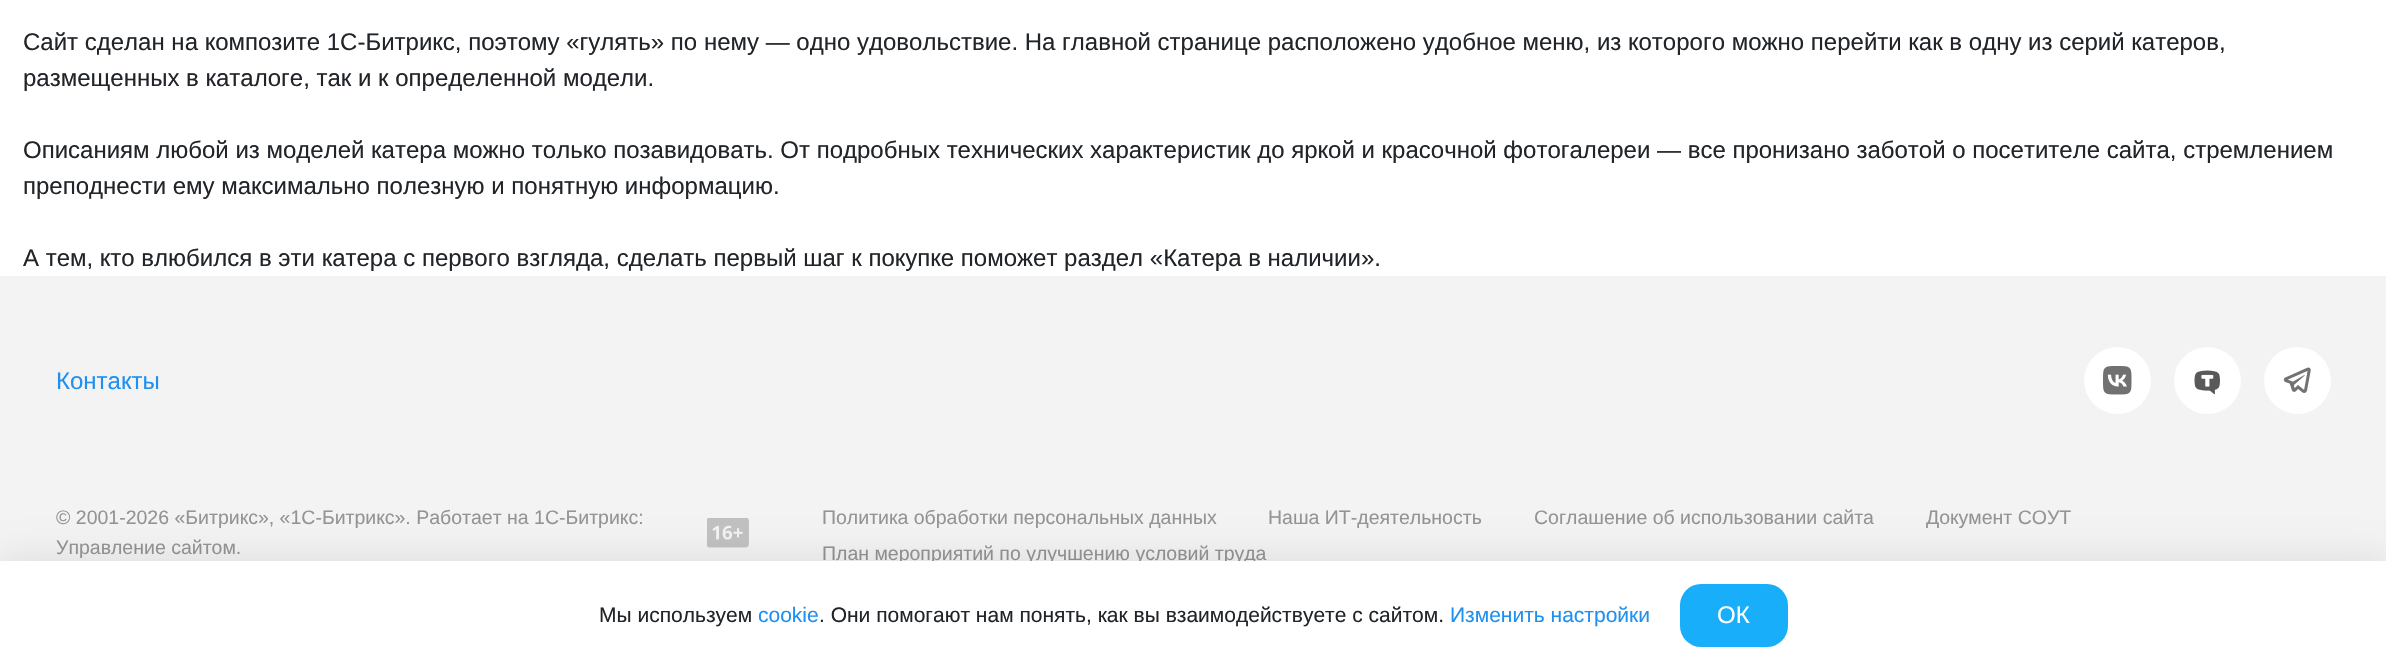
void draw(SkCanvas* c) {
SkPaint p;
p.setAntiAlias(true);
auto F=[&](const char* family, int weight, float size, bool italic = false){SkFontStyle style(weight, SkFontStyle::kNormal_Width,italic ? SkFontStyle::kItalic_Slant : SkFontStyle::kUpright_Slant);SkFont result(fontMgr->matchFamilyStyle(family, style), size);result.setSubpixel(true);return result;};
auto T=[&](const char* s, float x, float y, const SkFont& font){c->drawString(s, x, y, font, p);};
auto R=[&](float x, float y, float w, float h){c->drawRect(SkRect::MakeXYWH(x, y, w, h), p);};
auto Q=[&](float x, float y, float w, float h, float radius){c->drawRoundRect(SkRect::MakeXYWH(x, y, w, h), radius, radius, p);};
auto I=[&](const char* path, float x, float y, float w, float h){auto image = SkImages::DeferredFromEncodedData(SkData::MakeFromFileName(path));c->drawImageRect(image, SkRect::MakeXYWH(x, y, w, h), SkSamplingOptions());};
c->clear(0xffffffff);
auto f1 = F("Liberation Sans",400,24);
p.setColor(0xff212529);
T("Сайт сделан на композите 1С-Битрикс, поэтому «гулять» по нему — одно удовольствие. На главной странице расположено удобное меню, из которого можно перейти как в одну из серий катеров,",23,50,f1);
T("размещенных в каталоге, так и к определенной модели.",23,86,f1);
T("Описаниям любой из моделей катера можно только позавидовать. От подробных технических характеристик до яркой и красочной фотогалереи — все пронизано заботой о посетителе сайта, стремлением",23,158,f1);
T("преподнести ему максимально полезную и понятную информацию.",23,194,f1);
T("А тем, кто влюбился в эти катера с первого взгляда, сделать первый шаг к покупке поможет раздел «Катера в наличии».",23,266,f1);
p.setColor(0xfff3f3f3);
R(0,276,2386,285);
p.setColor(0xff1f90ef);
T("Контакты",56,389,f1);
p.setColor(0xffffffff);
c->drawCircle(2117.5,380.5,33.5,p);
I("1.png",2103,366,29,29);
c->drawCircle(2207.5,380.5,33.5,p);
I("2.png",2194,370,26,25);
c->drawCircle(2297.5,380.5,33.5,p);
I("3.png",2283,367,28,26);
auto f2 = F("Liberation Sans",400,19.5);
p.setColor(0xff939495);
T("© 2001-2026 «Битрикс», «1С-Битрикс». Работает на 1С-Битрикс:",56,524,f2);
T("Управление сайтом.",56,554,f2);
I("4.png",707,518,42,30);
T("Политика обработки персональных данных",822,524,f2);
T("Наша ИТ-деятельность",1268,524,f2);
T("Соглашение об использовании сайта",1534,524,f2);
T("Документ СОУТ",1926,524,f2);
T("План мероприятий по улучшению условий труда",822,560,f2);
p.setColor(0x1a000000);
p.setMaskFilter(SkMaskFilter::MakeBlur(kNormal_SkBlurStyle, 18));
c->drawRect(SkRect::MakeXYWH(0,561,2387,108),p);
p.setMaskFilter(nullptr);
p.setColor(0xffffffff);
R(0,561,2386,107);
auto f3 = F("Liberation Sans",400,21);
p.setColor(0xff212529);
T("Мы используем",599,622,f3);
p.setColor(0xff1f90ef);
T("cookie",758,622,f3);
p.setColor(0xff212529);
T(". Они помогают нам понять, как вы взаимодействуете с сайтом.",819,622,f3);
p.setColor(0xff1f90ef);
T("Изменить настройки",1450,622,f3);
p.setColor(0xff19aef9);
Q(1680,584,108,63,21);
p.setColor(0xffffffff);
T("ОК",1717,623,f1);
}
